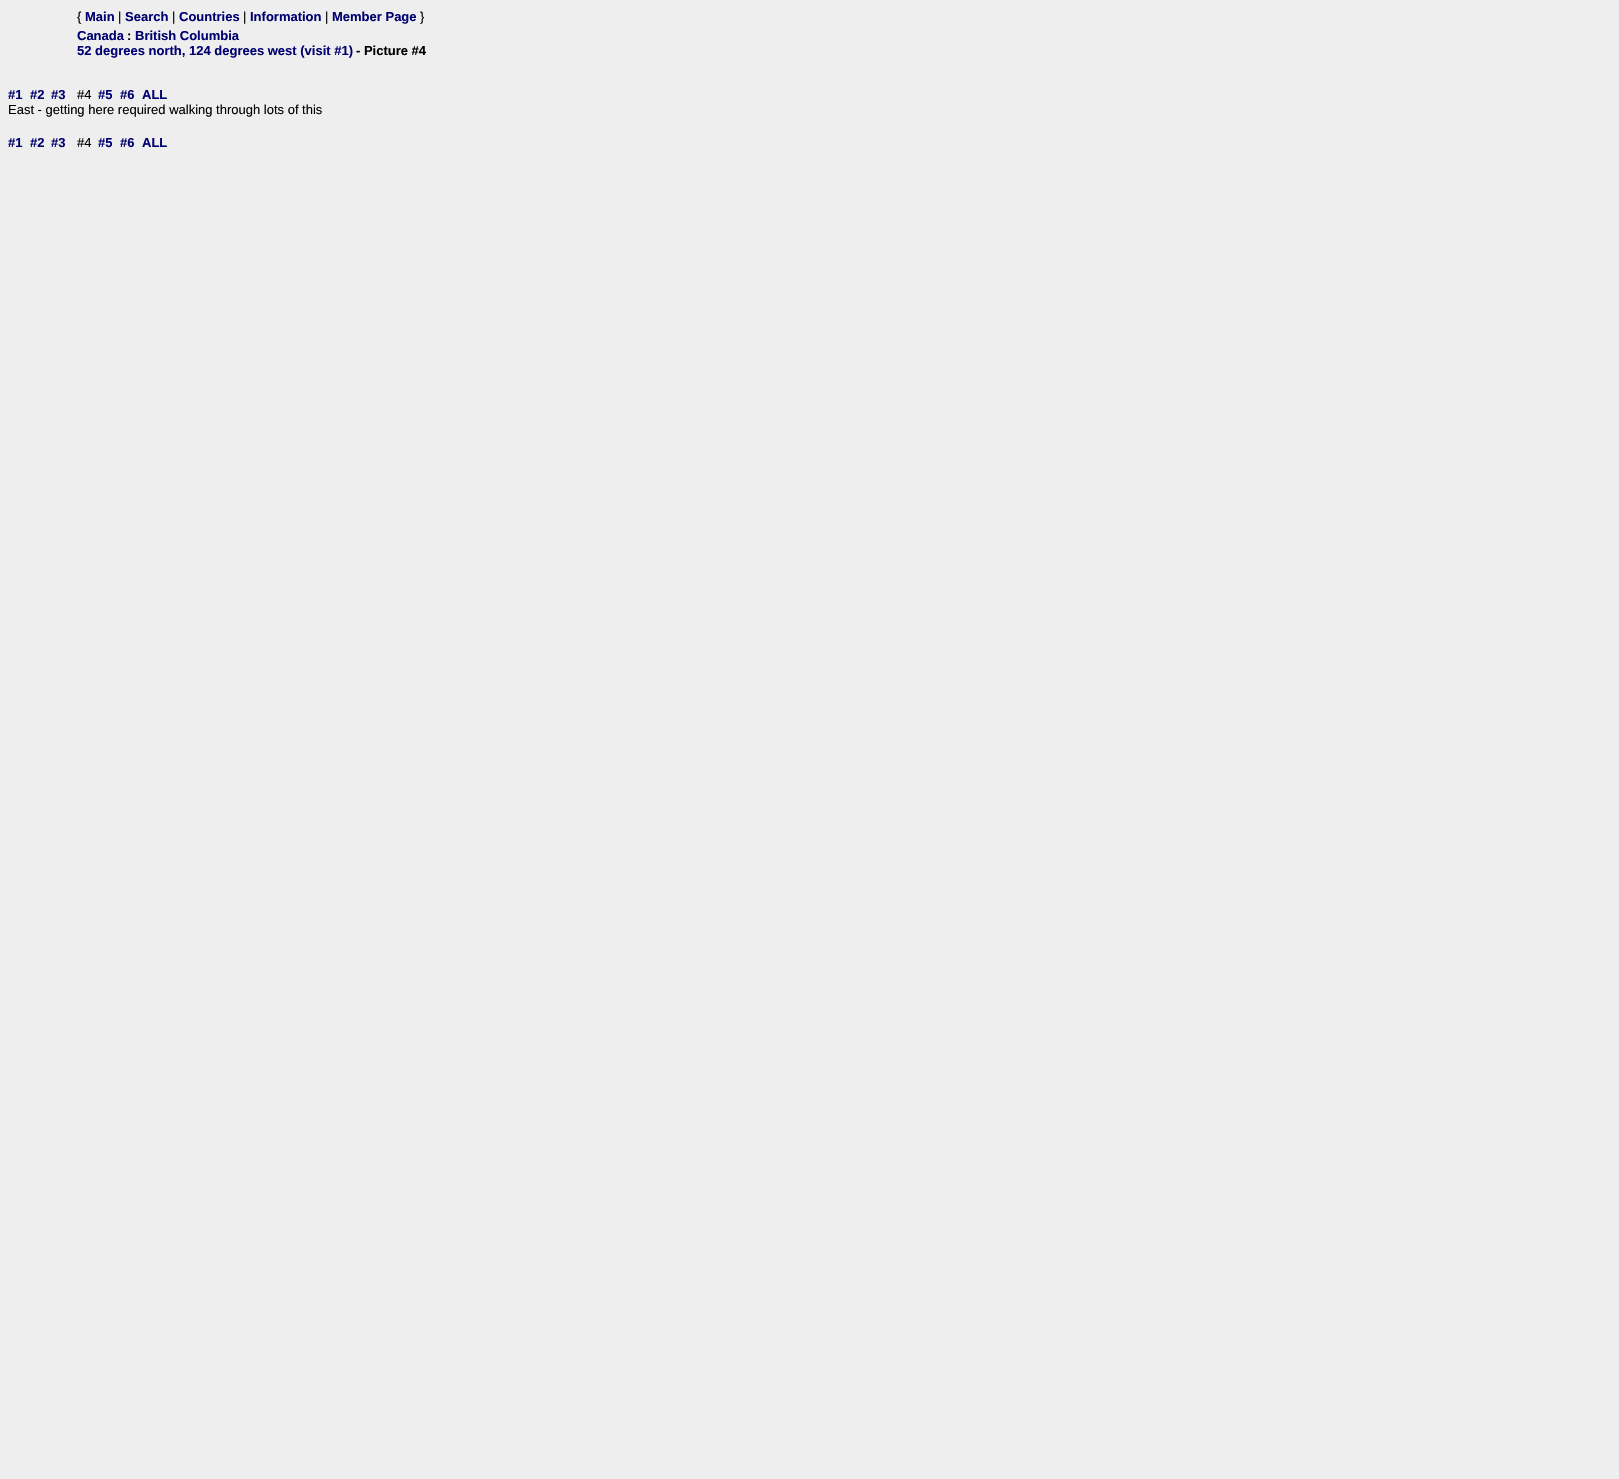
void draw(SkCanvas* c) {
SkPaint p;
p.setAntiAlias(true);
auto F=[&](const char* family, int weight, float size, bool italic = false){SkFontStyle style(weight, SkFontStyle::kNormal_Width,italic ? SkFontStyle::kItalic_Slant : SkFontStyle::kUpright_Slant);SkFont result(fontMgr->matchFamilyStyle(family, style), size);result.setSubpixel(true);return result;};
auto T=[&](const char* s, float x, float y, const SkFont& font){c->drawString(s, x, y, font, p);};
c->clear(0xffeeeeee);
auto f1 = F("Liberation Sans",400,13);
p.setColor(0xff000000);
T("{",77,21,f1);
auto f2 = F("Liberation Sans",700,13);
p.setColor(0xff000070);
T("Main",85,21,f2);
p.setColor(0xff000000);
T("|",118,21,f1);
p.setColor(0xff000070);
T("Search",125,21,f2);
p.setColor(0xff000000);
T("|",172,21,f1);
p.setColor(0xff000070);
T("Countries",179,21,f2);
p.setColor(0xff000000);
T("|",243,21,f1);
p.setColor(0xff000070);
T("Information",250,21,f2);
p.setColor(0xff000000);
T("|",325,21,f1);
p.setColor(0xff000070);
T("Member Page",332,21,f2);
p.setColor(0xff000000);
T("}",420,21,f1);
p.setColor(0xff000070);
T("Canada",77,40,f2);
p.setColor(0xff000000);
T(":",127,40,f2);
p.setColor(0xff000070);
T("British Columbia",135,40,f2);
T("52 degrees north, 124 degrees west (visit #1)",77,55,f2);
p.setColor(0xff000000);
T("- Picture #4",356,55,f2);
p.setColor(0xff000070);
T("#1",8,99,f2);
T("#2",30,99,f2);
T("#3",51,99,f2);
p.setColor(0xff000000);
T("#4",77,99,f1);
p.setColor(0xff000070);
T("#5",98,99,f2);
T("#6",120,99,f2);
T("ALL",142,99,f2);
p.setColor(0xff000000);
T("East - getting here required walking through lots of this",8,114,f1);
p.setColor(0xff000070);
T("#1",8,147,f2);
T("#2",30,147,f2);
T("#3",51,147,f2);
p.setColor(0xff000000);
T("#4",77,147,f1);
p.setColor(0xff000070);
T("#5",98,147,f2);
T("#6",120,147,f2);
T("ALL",142,147,f2);
}
